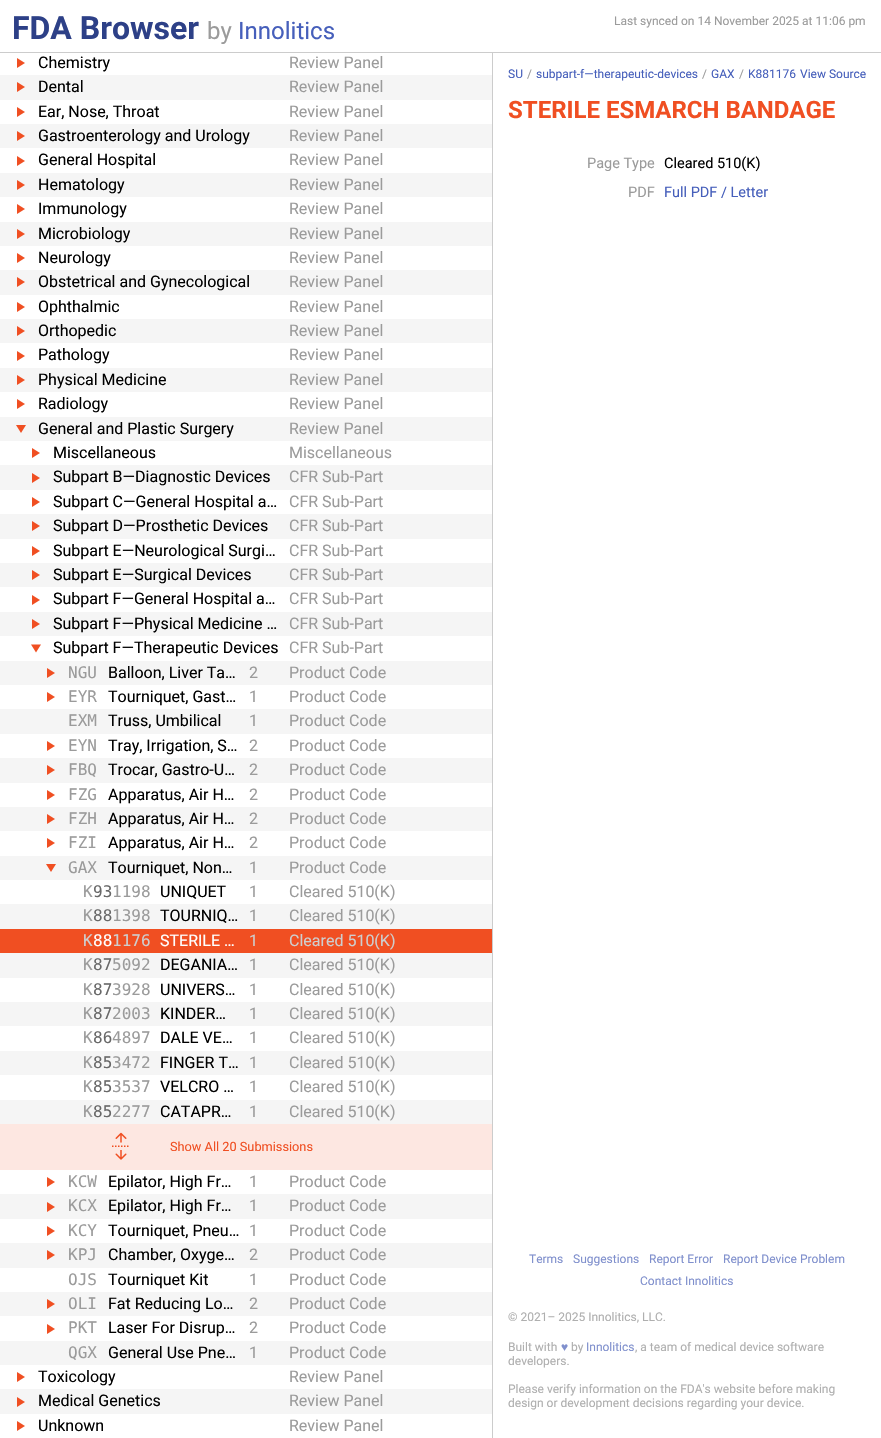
void draw(SkCanvas* c) {
SkPaint p;
p.setAntiAlias(true);
auto F=[&](const char* family, int weight, float size, bool italic = false){SkFontStyle style(weight, SkFontStyle::kNormal_Width,italic ? SkFontStyle::kItalic_Slant : SkFontStyle::kUpright_Slant);SkFont result(fontMgr->matchFamilyStyle(family, style), size);result.setSubpixel(true);return result;};
auto T=[&](const char* s, float x, float y, const SkFont& font){c->drawString(s, x, y, font, p);};
auto R=[&](float x, float y, float w, float h){c->drawRect(SkRect::MakeXYWH(x, y, w, h), p);};
auto I=[&](const char* path, float x, float y, float w, float h){auto image = SkImages::DeferredFromEncodedData(SkData::MakeFromFileName(path));c->drawImageRect(image, SkRect::MakeXYWH(x, y, w, h), SkSamplingOptions());};
auto P=[&](const char* data, bool evenOdd = false){SkPath result = *SkParsePath::FromSVGString(data);if (evenOdd) result.setFillType(SkPathFillType::kEvenOdd);return result;};
c->clear(0xffffffff);
p.setColor(0xffcccccc);
R(0,52,881,1);
auto f1 = F("Roboto",700,32);
p.setColor(0xff2d4087);
T("FDA Browser",12,39,f1);
auto f2 = F("Roboto",400,24);
p.setColor(0xff9b9b9b);
T("by",207,39,f2);
p.setColor(0xff465fbb);
T("Innolitics",238,39,f2);
p.setColor(0xffcccccc);
R(492,53,1,1385);
p.setColor(0xfff04f22);
c->drawPath(P("M17 68v-10l8 5z"),p);
auto f3 = F("Roboto",400,16);
p.setColor(0xff000000);
T("Chemistry",38,68,f3);
p.setColor(0xff9b9b9b);
T("Review Panel",289,68,f3);
p.setColor(0xfff5f5f5);
R(0,75,492,25);
p.setColor(0xfff04f22);
c->drawPath(P("M17 92v-10l8 5z"),p);
p.setColor(0xff000000);
T("Dental",38,92,f3);
p.setColor(0xff9b9b9b);
T("Review Panel",289,92,f3);
p.setColor(0xfff04f22);
c->drawPath(P("M17 117v-10l8 5z"),p);
p.setColor(0xff000000);
T("Ear, Nose, Throat",38,117,f3);
p.setColor(0xff9b9b9b);
T("Review Panel",289,117,f3);
p.setColor(0xfff5f5f5);
R(0,124,492,24);
p.setColor(0xfff04f22);
c->drawPath(P("M17 141v-10l8 5z"),p);
p.setColor(0xff000000);
T("Gastroenterology and Urology",38,141,f3);
p.setColor(0xff9b9b9b);
T("Review Panel",289,141,f3);
p.setColor(0xfff04f22);
c->drawPath(P("M17 166v-10l8 5z"),p);
p.setColor(0xff000000);
T("General Hospital",38,165,f3);
p.setColor(0xff9b9b9b);
T("Review Panel",289,165,f3);
p.setColor(0xfff5f5f5);
R(0,173,492,24);
p.setColor(0xfff04f22);
c->drawPath(P("M17 190v-10l8 5z"),p);
p.setColor(0xff000000);
T("Hematology",38,190,f3);
p.setColor(0xff9b9b9b);
T("Review Panel",289,190,f3);
p.setColor(0xfff04f22);
c->drawPath(P("M17 214v-10l8 5z"),p);
p.setColor(0xff000000);
T("Immunology",38,214,f3);
p.setColor(0xff9b9b9b);
T("Review Panel",289,214,f3);
p.setColor(0xfff5f5f5);
R(0,222,492,24);
p.setColor(0xfff04f22);
c->drawPath(P("M17 239v-10l8 5z"),p);
p.setColor(0xff000000);
T("Microbiology",38,239,f3);
p.setColor(0xff9b9b9b);
T("Review Panel",289,239,f3);
p.setColor(0xfff04f22);
c->drawPath(P("M17 263v-10l8 5z"),p);
p.setColor(0xff000000);
T("Neurology",38,263,f3);
p.setColor(0xff9b9b9b);
T("Review Panel",289,263,f3);
p.setColor(0xfff5f5f5);
R(0,270,492,25);
p.setColor(0xfff04f22);
c->drawPath(P("M17 287v-10l8 5z"),p);
p.setColor(0xff000000);
T("Obstetrical and Gynecological",38,287,f3);
p.setColor(0xff9b9b9b);
T("Review Panel",289,287,f3);
p.setColor(0xfff04f22);
c->drawPath(P("M17 312v-10l8 5z"),p);
p.setColor(0xff000000);
T("Ophthalmic",38,312,f3);
p.setColor(0xff9b9b9b);
T("Review Panel",289,312,f3);
p.setColor(0xfff5f5f5);
R(0,319,492,24);
p.setColor(0xfff04f22);
c->drawPath(P("M17 336v-10l8 5z"),p);
p.setColor(0xff000000);
T("Orthopedic",38,336,f3);
p.setColor(0xff9b9b9b);
T("Review Panel",289,336,f3);
p.setColor(0xfff04f22);
c->drawPath(P("M17 361v-10l8 5z"),p);
p.setColor(0xff000000);
T("Pathology",38,360,f3);
p.setColor(0xff9b9b9b);
T("Review Panel",289,360,f3);
p.setColor(0xfff5f5f5);
R(0,368,492,24);
p.setColor(0xfff04f22);
c->drawPath(P("M17 385v-10l8 5z"),p);
p.setColor(0xff000000);
T("Physical Medicine",38,385,f3);
p.setColor(0xff9b9b9b);
T("Review Panel",289,385,f3);
p.setColor(0xfff04f22);
c->drawPath(P("M17 409v-10l8 5z"),p);
p.setColor(0xff000000);
T("Radiology",38,409,f3);
p.setColor(0xff9b9b9b);
T("Review Panel",289,409,f3);
p.setColor(0xfff5f5f5);
R(0,417,492,219);
p.setColor(0xfff04f22);
c->drawPath(P("M16 425h10l-5 8z"),p);
p.setColor(0xff000000);
T("General and Plastic Surgery",38,434,f3);
p.setColor(0xff9b9b9b);
T("Review Panel",289,434,f3);
p.setColor(0xffffffff);
R(0,441,492,24);
p.setColor(0xfff04f22);
c->drawPath(P("M32 458v-10l8 5z"),p);
p.setColor(0xff000000);
T("Miscellaneous",53,458,f3);
p.setColor(0xff9b9b9b);
T("Miscellaneous",289,458,f3);
p.setColor(0xfff04f22);
c->drawPath(P("M32 483v-10l8 5z"),p);
p.setColor(0xff000000);
T("Subpart B—Diagnostic Devices",53,482,f3);
p.setColor(0xff9b9b9b);
T("CFR Sub-Part",289,482,f3);
p.setColor(0xffffffff);
R(0,490,492,24);
p.setColor(0xfff04f22);
c->drawPath(P("M32 507v-10l8 5z"),p);
p.setColor(0xff000000);
T("Subpart C—General Hospital a…",53,507,f3);
p.setColor(0xff9b9b9b);
T("CFR Sub-Part",289,507,f3);
p.setColor(0xfff04f22);
c->drawPath(P("M32 531v-10l8 5z"),p);
p.setColor(0xff000000);
T("Subpart D—Prosthetic Devices",53,531,f3);
p.setColor(0xff9b9b9b);
T("CFR Sub-Part",289,531,f3);
p.setColor(0xffffffff);
R(0,539,492,24);
p.setColor(0xfff04f22);
c->drawPath(P("M32 556v-10l8 5z"),p);
p.setColor(0xff000000);
T("Subpart E—Neurological Surgi…",53,556,f3);
p.setColor(0xff9b9b9b);
T("CFR Sub-Part",289,556,f3);
p.setColor(0xfff04f22);
c->drawPath(P("M32 580v-10l8 5z"),p);
p.setColor(0xff000000);
T("Subpart E—Surgical Devices",53,580,f3);
p.setColor(0xff9b9b9b);
T("CFR Sub-Part",289,580,f3);
p.setColor(0xffffffff);
R(0,587,492,25);
p.setColor(0xfff04f22);
c->drawPath(P("M32 605v-10l8 5z"),p);
p.setColor(0xff000000);
T("Subpart F—General Hospital a…",53,604,f3);
p.setColor(0xff9b9b9b);
T("CFR Sub-Part",289,604,f3);
p.setColor(0xfff04f22);
c->drawPath(P("M32 629v-10l8 5z"),p);
p.setColor(0xff000000);
T("Subpart F—Physical Medicine …",53,629,f3);
p.setColor(0xff9b9b9b);
T("CFR Sub-Part",289,629,f3);
p.setColor(0xfff04f22);
c->drawPath(P("M31 644.5h10l-5 8z"),p);
p.setColor(0xff000000);
T("Subpart F—Therapeutic Devices",53,653,f3);
p.setColor(0xff9b9b9b);
T("CFR Sub-Part",289,653,f3);
p.setColor(0xfff5f5f5);
R(0,661,492,24);
p.setColor(0xfff04f22);
c->drawPath(P("M47 678v-10l8 5z"),p);
auto f4 = F("DejaVu Sans Mono",400,16);
p.setColor(0xff9b9b9b);
T("NGU",68,678,f4);
p.setColor(0xff000000);
T("Balloon, Liver Ta…",108,678,f3);
p.setColor(0xff9b9b9b);
T("2",249,678,f3);
T("Product Code",289,678,f3);
p.setColor(0xfff04f22);
c->drawPath(P("M47 702v-10l8 5z"),p);
p.setColor(0xff9b9b9b);
T("EYR",68,702,f4);
p.setColor(0xff000000);
T("Tourniquet, Gast…",108,702,f3);
p.setColor(0xff9b9b9b);
T("1",249,702,f3);
T("Product Code",289,702,f3);
p.setColor(0xfff5f5f5);
R(0,709,492,25);
p.setColor(0xff9b9b9b);
T("EXM",68,726,f4);
p.setColor(0xff000000);
T("Truss, Umbilical",108,726,f3);
p.setColor(0xff9b9b9b);
T("1",249,726,f3);
T("Product Code",289,726,f3);
p.setColor(0xfff04f22);
c->drawPath(P("M47 751v-10l8 5z"),p);
p.setColor(0xff9b9b9b);
T("EYN",68,751,f4);
p.setColor(0xff000000);
T("Tray, Irrigation, S…",108,751,f3);
p.setColor(0xff9b9b9b);
T("2",249,751,f3);
T("Product Code",289,751,f3);
p.setColor(0xfff5f5f5);
R(0,758,492,25);
p.setColor(0xfff04f22);
c->drawPath(P("M47 775v-10l8 5z"),p);
p.setColor(0xff9b9b9b);
T("FBQ",68,775,f4);
p.setColor(0xff000000);
T("Trocar, Gastro-U…",108,775,f3);
p.setColor(0xff9b9b9b);
T("2",249,775,f3);
T("Product Code",289,775,f3);
p.setColor(0xfff04f22);
c->drawPath(P("M47 800v-10l8 5z"),p);
p.setColor(0xff9b9b9b);
T("FZG",68,800,f4);
p.setColor(0xff000000);
T("Apparatus, Air H…",108,800,f3);
p.setColor(0xff9b9b9b);
T("2",249,800,f3);
T("Product Code",289,800,f3);
p.setColor(0xfff5f5f5);
R(0,807,492,24);
p.setColor(0xfff04f22);
c->drawPath(P("M47 824v-10l8 5z"),p);
p.setColor(0xff9b9b9b);
T("FZH",68,824,f4);
p.setColor(0xff000000);
T("Apparatus, Air H…",108,824,f3);
p.setColor(0xff9b9b9b);
T("2",249,824,f3);
T("Product Code",289,824,f3);
p.setColor(0xfff04f22);
c->drawPath(P("M47 848v-10l8 5z"),p);
p.setColor(0xff9b9b9b);
T("FZI",68,848,f4);
p.setColor(0xff000000);
T("Apparatus, Air H…",108,848,f3);
p.setColor(0xff9b9b9b);
T("2",249,848,f3);
T("Product Code",289,848,f3);
p.setColor(0xfff5f5f5);
R(0,856,492,268);
p.setColor(0xfff04f22);
c->drawPath(P("M46 864h10l-5 8z"),p);
p.setColor(0xff9b9b9b);
T("GAX",68,873,f4);
p.setColor(0xff000000);
T("Tourniquet, Non…",108,873,f3);
p.setColor(0xff9b9b9b);
T("1",249,873,f3);
T("Product Code",289,873,f3);
p.setColor(0xffffffff);
R(0,880,492,24);
p.setColor(0xff9b9b9b);
T("K",83,897,f4);
p.setColor(0xff686868);
T("93",93,897,f4);
p.setColor(0xff9b9b9b);
T("1198",112,897,f4);
p.setColor(0xff000000);
T("UNIQUET",160,897,f3);
p.setColor(0xff9b9b9b);
T("1",249,897,f3);
T("Cleared 510(K)",289,897,f3);
T("K",83,921,f4);
p.setColor(0xff686868);
T("88",93,921,f4);
p.setColor(0xff9b9b9b);
T("1398",112,921,f4);
p.setColor(0xff000000);
T("TOURNIQ…",160,921,f3);
p.setColor(0xff9b9b9b);
T("1",249,921,f3);
T("Cleared 510(K)",289,921,f3);
p.setColor(0xfff04f22);
R(0,929,492,24);
p.setColor(0xffcecece);
T("K",83,946,f4);
p.setColor(0xffffffff);
T("88",93,946,f4);
p.setColor(0xffcecece);
T("1176",112,946,f4);
p.setColor(0xffffffff);
T("STERILE …",160,946,f3);
p.setColor(0xffcecece);
T("1",249,946,f3);
T("Cleared 510(K)",289,946,f3);
p.setColor(0xff9b9b9b);
T("K",83,970,f4);
p.setColor(0xff686868);
T("87",93,970,f4);
p.setColor(0xff9b9b9b);
T("5092",112,970,f4);
p.setColor(0xff000000);
T("DEGANIA…",160,970,f3);
p.setColor(0xff9b9b9b);
T("1",249,970,f3);
T("Cleared 510(K)",289,970,f3);
p.setColor(0xffffffff);
R(0,978,492,24);
p.setColor(0xff9b9b9b);
T("K",83,995,f4);
p.setColor(0xff686868);
T("87",93,995,f4);
p.setColor(0xff9b9b9b);
T("3928",112,995,f4);
p.setColor(0xff000000);
T("UNIVERS…",160,995,f3);
p.setColor(0xff9b9b9b);
T("1",249,995,f3);
T("Cleared 510(K)",289,995,f3);
T("K",83,1019,f4);
p.setColor(0xff686868);
T("87",93,1019,f4);
p.setColor(0xff9b9b9b);
T("2003",112,1019,f4);
p.setColor(0xff000000);
T("KINDER…",160,1019,f3);
p.setColor(0xff9b9b9b);
T("1",249,1019,f3);
T("Cleared 510(K)",289,1019,f3);
p.setColor(0xffffffff);
R(0,1026,492,25);
p.setColor(0xff9b9b9b);
T("K",83,1043,f4);
p.setColor(0xff686868);
T("86",93,1043,f4);
p.setColor(0xff9b9b9b);
T("4897",112,1043,f4);
p.setColor(0xff000000);
T("DALE VE…",160,1043,f3);
p.setColor(0xff9b9b9b);
T("1",249,1043,f3);
T("Cleared 510(K)",289,1043,f3);
T("K",83,1068,f4);
p.setColor(0xff686868);
T("85",93,1068,f4);
p.setColor(0xff9b9b9b);
T("3472",112,1068,f4);
p.setColor(0xff000000);
T("FINGER T…",160,1068,f3);
p.setColor(0xff9b9b9b);
T("1",249,1068,f3);
T("Cleared 510(K)",289,1068,f3);
p.setColor(0xffffffff);
R(0,1075,492,25);
p.setColor(0xff9b9b9b);
T("K",83,1092,f4);
p.setColor(0xff686868);
T("85",93,1092,f4);
p.setColor(0xff9b9b9b);
T("3537",112,1092,f4);
p.setColor(0xff000000);
T("VELCRO …",160,1092,f3);
p.setColor(0xff9b9b9b);
T("1",249,1092,f3);
T("Cleared 510(K)",289,1092,f3);
T("K",83,1117,f4);
p.setColor(0xff686868);
T("85",93,1117,f4);
p.setColor(0xff9b9b9b);
T("2277",112,1117,f4);
p.setColor(0xff000000);
T("CATAPR…",160,1117,f3);
p.setColor(0xff9b9b9b);
T("1",249,1117,f3);
T("Cleared 510(K)",289,1117,f3);
p.setColor(0xfffde7e1);
R(0,1124,492,46);
I("1.png",112,1132,17,28);
auto f5 = F("Roboto",400,12.75);
p.setColor(0xfff04f22);
T("Show All 20 Submissions",170,1151,f5);
c->drawPath(P("M47 1187v-10l8 5z"),p);
p.setColor(0xff9b9b9b);
T("KCW",68,1187,f4);
p.setColor(0xff000000);
T("Epilator, High Fr…",108,1187,f3);
p.setColor(0xff9b9b9b);
T("1",249,1187,f3);
T("Product Code",289,1187,f3);
p.setColor(0xfff5f5f5);
R(0,1194,492,25);
p.setColor(0xfff04f22);
c->drawPath(P("M47 1212v-10l8 5z"),p);
p.setColor(0xff9b9b9b);
T("KCX",68,1211,f4);
p.setColor(0xff000000);
T("Epilator, High Fr…",108,1211,f3);
p.setColor(0xff9b9b9b);
T("1",249,1211,f3);
T("Product Code",289,1211,f3);
p.setColor(0xfff04f22);
c->drawPath(P("M47 1236v-10l8 5z"),p);
p.setColor(0xff9b9b9b);
T("KCY",68,1236,f4);
p.setColor(0xff000000);
T("Tourniquet, Pneu…",108,1236,f3);
p.setColor(0xff9b9b9b);
T("1",249,1236,f3);
T("Product Code",289,1236,f3);
p.setColor(0xfff5f5f5);
R(0,1243,492,25);
p.setColor(0xfff04f22);
c->drawPath(P("M47 1260v-10l8 5z"),p);
p.setColor(0xff9b9b9b);
T("KPJ",68,1260,f4);
p.setColor(0xff000000);
T("Chamber, Oxyge…",108,1260,f3);
p.setColor(0xff9b9b9b);
T("2",249,1260,f3);
T("Product Code",289,1260,f3);
T("OJS",68,1285,f4);
p.setColor(0xff000000);
T("Tourniquet Kit",108,1285,f3);
p.setColor(0xff9b9b9b);
T("1",249,1285,f3);
T("Product Code",289,1285,f3);
p.setColor(0xfff5f5f5);
R(0,1292,492,24);
p.setColor(0xfff04f22);
c->drawPath(P("M47 1309v-10l8 5z"),p);
p.setColor(0xff9b9b9b);
T("OLI",68,1309,f4);
p.setColor(0xff000000);
T("Fat Reducing Lo…",108,1309,f3);
p.setColor(0xff9b9b9b);
T("2",249,1309,f3);
T("Product Code",289,1309,f3);
p.setColor(0xfff04f22);
c->drawPath(P("M47 1334v-10l8 5z"),p);
p.setColor(0xff9b9b9b);
T("PKT",68,1333,f4);
p.setColor(0xff000000);
T("Laser For Disrup…",108,1333,f3);
p.setColor(0xff9b9b9b);
T("2",249,1333,f3);
T("Product Code",289,1333,f3);
p.setColor(0xfff5f5f5);
R(0,1341,492,24);
p.setColor(0xff9b9b9b);
T("QGX",68,1358,f4);
p.setColor(0xff000000);
T("General Use Pne…",108,1358,f3);
p.setColor(0xff9b9b9b);
T("1",249,1358,f3);
T("Product Code",289,1358,f3);
p.setColor(0xfff04f22);
c->drawPath(P("M17 1382v-10l8 5z"),p);
p.setColor(0xff000000);
T("Toxicology",38,1382,f3);
p.setColor(0xff9b9b9b);
T("Review Panel",289,1382,f3);
p.setColor(0xfff5f5f5);
R(0,1389,492,25);
p.setColor(0xfff04f22);
c->drawPath(P("M17 1407v-10l8 5z"),p);
p.setColor(0xff000000);
T("Medical Genetics",38,1406,f3);
p.setColor(0xff9b9b9b);
T("Review Panel",289,1406,f3);
p.setColor(0xfff04f22);
c->drawPath(P("M17 1431v-10l8 5z"),p);
p.setColor(0xff000000);
T("Unknown",38,1431,f3);
p.setColor(0xff9b9b9b);
T("Review Panel",289,1431,f3);
auto f6 = F("Roboto",400,12);
T("Last synced on 14 November 2025 at 11:06 pm",614,25,f6);
p.setColor(0xff465fbb);
T("SU",508,78,f6);
p.setColor(0xff9b9b9b);
T("/",527,78,f6);
p.setColor(0xff465fbb);
T("subpart-f—therapeutic-devices",536,78,f6);
p.setColor(0xff9b9b9b);
T("/",702,78,f6);
p.setColor(0xff465fbb);
T("GAX",711,78,f6);
p.setColor(0xff9b9b9b);
T("/",739,78,f6);
p.setColor(0xff465fbb);
T("K881176",748,78,f6);
T("View Source",800,78,f6);
auto f7 = F("Roboto",700,24);
p.setColor(0xfff04f22);
T("STERILE ESMARCH BANDAGE",508,118,f7);
auto f8 = F("Roboto",400,14.5);
p.setColor(0xff9b9b9b);
T("Page Type",587,168,f8);
p.setColor(0xff000000);
T("Cleared 510(K)",664,168,f8);
p.setColor(0xff9b9b9b);
T("PDF",628,197,f8);
p.setColor(0xff465fbb);
T("Full PDF / Letter",664,197,f8);
p.setColor(0xff8090cd);
T("Terms",529,1263,f6);
T("Suggestions",573,1263,f6);
T("Report Error",649,1263,f6);
T("Report Device Problem",723,1263,f6);
T("Contact Innolitics",640,1285,f6);
p.setColor(0xffafafaf);
T("© 2021– 2025 Innolitics, LLC.",508,1321,f6);
T("Built with",508,1351,f6);
auto f9 = F("Liberation Sans",400,12);
p.setColor(0xff8090cd);
T("♥",561,1351,f9);
p.setColor(0xffafafaf);
T("by",571,1351,f6);
p.setColor(0xff8090cd);
T("Innolitics",586,1351,f6);
p.setColor(0xffafafaf);
T(", a team of medical device software",635,1351,f6);
T("developers.",508,1365,f6);
T("Please verify information on the FDA's website before making",508,1393,f6);
T("design or development decisions regarding your device.",508,1407,f6);
}
